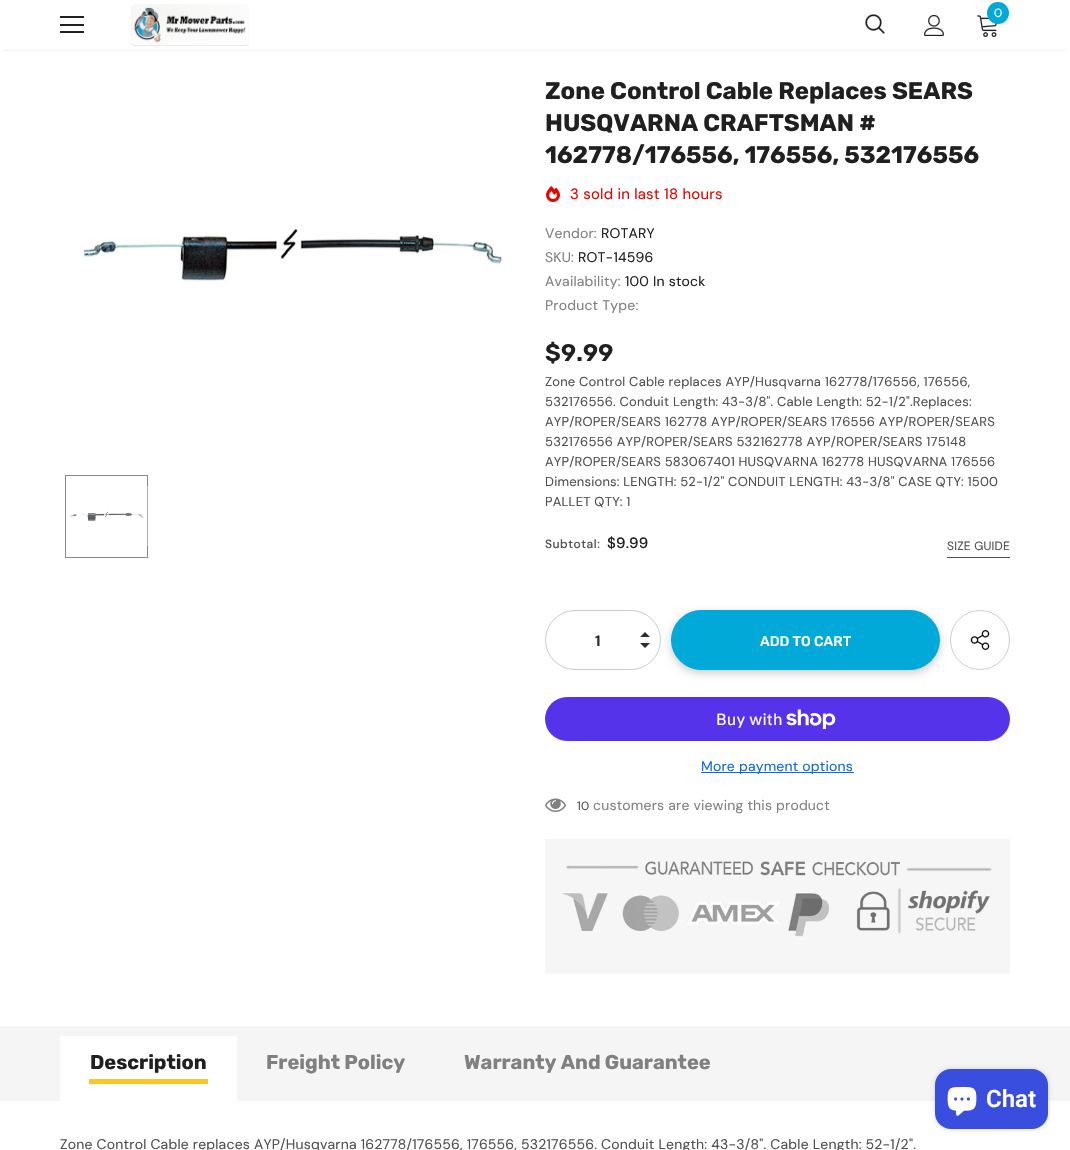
void draw(SkCanvas* c) {
SkPaint p;
p.setAntiAlias(true);
auto F=[&](const char* family, int weight, float size, bool italic = false){SkFontStyle style(weight, SkFontStyle::kNormal_Width,italic ? SkFontStyle::kItalic_Slant : SkFontStyle::kUpright_Slant);SkFont result(fontMgr->matchFamilyStyle(family, style), size);result.setSubpixel(true);return result;};
auto T=[&](const char* s, float x, float y, const SkFont& font){c->drawString(s, x, y, font, p);};
auto L=[&](const char* s, float x, float y, const SkFont& font, const SkPaint& ink, float letter, float word){std::vector<SkGlyphID> glyphs(font.countText(s, strlen(s), SkTextEncoding::kUTF8));std::vector<float> xs(glyphs.size());font.textToGlyphs(s, strlen(s), SkTextEncoding::kUTF8, glyphs);font.getXPos(glyphs, xs, x);float extra = 0;for (size_t i = 0; i < glyphs.size(); i++) {xs[i] += extra;extra += letter + word * (glyphs[i] == font.unicharToGlyph(' '));}c->drawTextBlob(SkTextBlob::MakeFromPosHGlyphs(glyphs, xs, y, font), 0, 0, ink);};
auto R=[&](float x, float y, float w, float h){c->drawRect(SkRect::MakeXYWH(x, y, w, h), p);};
auto Q=[&](float x, float y, float w, float h, float radius){c->drawRoundRect(SkRect::MakeXYWH(x, y, w, h), radius, radius, p);};
auto I=[&](const char* path, float x, float y, float w, float h){auto image = SkImages::DeferredFromEncodedData(SkData::MakeFromFileName(path));c->drawImageRect(image, SkRect::MakeXYWH(x, y, w, h), SkSamplingOptions());};
auto P=[&](const char* data, bool evenOdd = false){SkPath result = *SkParsePath::FromSVGString(data);if (evenOdd) result.setFillType(SkPathFillType::kEvenOdd);return result;};
c->clear(0xffffffff);
c->save();
c->clipRect(SkRect::MakeXYWH(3,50,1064,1));
p.setColor(0x1f000000);
p.setMaskFilter(SkMaskFilter::MakeBlur(kNormal_SkBlurStyle, 1.5));
c->drawRect(SkRect::MakeXYWH(3,6,1064,44),p);
p.setMaskFilter(nullptr);
c->restore();
p.setColor(0xff202020);
R(60,16,24,2);
R(60,24,24,2);
R(60,31,24,2);
I("1.png",131,4,118,42);
I("2.png",977,15,20,22);
p.setColor(0xff00a9d8);
c->drawCircle(998,13,11,p);
auto f1 = F("DM Sans",400,12);
p.setColor(0xffffffff);
T("0",994,17,f1);
I("3.png",865,14,20,20);
I("4.png",924,15,20,21);
I("5.png",82,229,421,54);
p.setStroke(true);
p.setStrokeWidth(1);
p.setColor(0xff898989);
c->drawRect(SkRect::MakeXYWH(65.5,475.5,82,82),p);
I("6.png",70,486,78,61);
auto f2 = F("Rubik",700,24);
p.setStroke(false);
p.setColor(0xff202020);
T("Zone Control Cable Replaces SEARS",545,99,f2);
T("HUSQVARNA CRAFTSMAN #",545,131,f2);
T("162778/176556, 176556, 532176556",545,163,f2);
I("7.png",546,186,14,16);
auto f3 = F("DM Sans",400,15);
p.setColor(0xffe10600);
L("3 sold in last 18 hours",570,199,f3,p,.2,0);
auto f4 = F("DM Sans",400,14);
p.setColor(0xff808080);
L("Vendor:",545,238,f4,p,.2,0);
p.setColor(0xff202020);
L("ROTARY",601,238,f4,p,.2,0);
p.setColor(0xff808080);
L("SKU:",545,262,f4,p,.2,0);
p.setColor(0xff202020);
L("ROT-14596",578,262,f4,p,.2,0);
p.setColor(0xff808080);
L("Availability:",545,286,f4,p,.2,0);
p.setColor(0xff202020);
L("100 In stock",625,286,f4,p,.2,0);
p.setColor(0xff808080);
L("Product Type:",545,310,f4,p,.2,0);
auto f5 = F("Rubik",600,24);
p.setColor(0xff202020);
L("$9.99",545,361,f5,p,.2,0);
auto f6 = F("DM Sans",400,13);
p.setColor(0xff505050);
L("Zone Control Cable replaces AYP/Husqvarna 162778/176556, 176556,",545,386,f6,p,.2,0);
L("532176556. Conduit Length: 43-3/8\". Cable Length: 52-1/2\".Replaces:",545,406,f6,p,.2,0);
L("AYP/ROPER/SEARS 162778 AYP/ROPER/SEARS 176556 AYP/ROPER/SEARS",545,426,f6,p,.2,0);
L("532176556 AYP/ROPER/SEARS 532162778 AYP/ROPER/SEARS 175148",545,446,f6,p,.2,0);
L("AYP/ROPER/SEARS 583067401 HUSQVARNA 162778 HUSQVARNA 176556",545,466,f6,p,.2,0);
L("Dimensions: LENGTH: 52-1/2\" CONDUIT LENGTH: 43-3/8\" CASE QTY: 1500",545,486,f6,p,.2,0);
L("PALLET QTY: 1",545,506,f6,p,.2,0);
auto f7 = F("DM Sans",500,12);
L("Subtotal:",545,548,f7,p,.5,0);
auto f8 = F("DM Sans",500,15);
p.setColor(0xff202020);
L("$9.99",607,548,f8,p,.2,0);
p.setColor(0xff505050);
R(947,557,63,1);
L("SIZE GUIDE",947,550,f1,p,.2,0);
p.setColor(0x33000000);
p.setMaskFilter(SkMaskFilter::MakeBlur(kNormal_SkBlurStyle, 4));
c->drawRoundRect(SkRect::MakeXYWH(671,613,269,60),30,30,p);
p.setMaskFilter(nullptr);
p.setStroke(true);
p.setColor(0xffcbcbcb);
c->drawRoundRect(SkRect::MakeXYWH(545.5,610.5,115,59),29.5,29.5,p);
auto f9 = F("DM Sans",700,15);
p.setStroke(false);
p.setColor(0xff2d2d2d);
T("1",595,646,f9);
c->drawPath(P("M640 643h10l-5 5zm10-6h-10l5-5z"),p);
p.setColor(0xff00a9d8);
c->drawRoundRect(SkRect::MakeXYWH(671.5,610.5,268,59),29.5,29.5,p);
p.setStroke(true);
c->drawRoundRect(SkRect::MakeXYWH(671.5,610.5,268,59),29.5,29.5,p);
auto f10 = F("Rubik",500,14);
p.setStroke(false);
p.setColor(0xffffffff);
T("ADD TO CART",760,646,f10);
p.setStroke(true);
p.setColor(0xffcdcdcd);
c->drawCircle(980,640,29.5,p);
I("8.png",970,630,20,20);
p.setStroke(false);
p.setColor(0xff5433eb);
Q(545,697,465,44,22);
auto f11 = F("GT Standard",400,16);
p.setColor(0xffffffff);
L("Buy with",716,725,f11,p,.2,0);
I("9.png",786,709,50,20);
p.setColor(0xff0a6cdc);
R(701,772,153,1);
L("More payment options",701,771,f4,p,.2,0);
I("10.png",545,798,21,14);
p.setColor(0xff505050);
L("10",577,810,f1,p,.2,0);
p.setColor(0xff808080);
L("customers are viewing this product",593,810,f4,p,.2,0);
I("11.png",545,839,465,135);
p.setColor(0xfff5f5f5);
R(0,1026,1070,75);
p.setColor(0xffffffff);
R(60,1036,177,65);
auto f12 = F("Rubik",700,20);
p.setColor(0xff202020);
T("Description",90,1069,f12);
p.setColor(0xfffdc525);
R(89,1079,119,5);
p.setColor(0xff808080);
T("Freight Policy",266,1069,f12);
T("Warranty And Guarantee",464,1069,f12);
p.setColor(0xff505050);
L("Zone Control Cable replaces AYP/Husqvarna 162778/176556, 176556, 532176556. Conduit Length: 43-3/8\". Cable Length: 52-1/2\".",60,1149,f4,p,.2,0);
p.setColor(0x26000000);
p.setMaskFilter(SkMaskFilter::MakeBlur(kNormal_SkBlurStyle, 2.5));
c->drawRoundRect(SkRect::MakeXYWH(935,1069,113,60),16,16,p);
p.setMaskFilter(nullptr);
p.setColor(0xff394ede);
Q(935,1069,113,60,16);
I("12.png",947,1087,30,29);
auto f13 = F("Roboto",600,24);
p.setColor(0xffffffff);
T("Chat",986,1107,f13);
}
